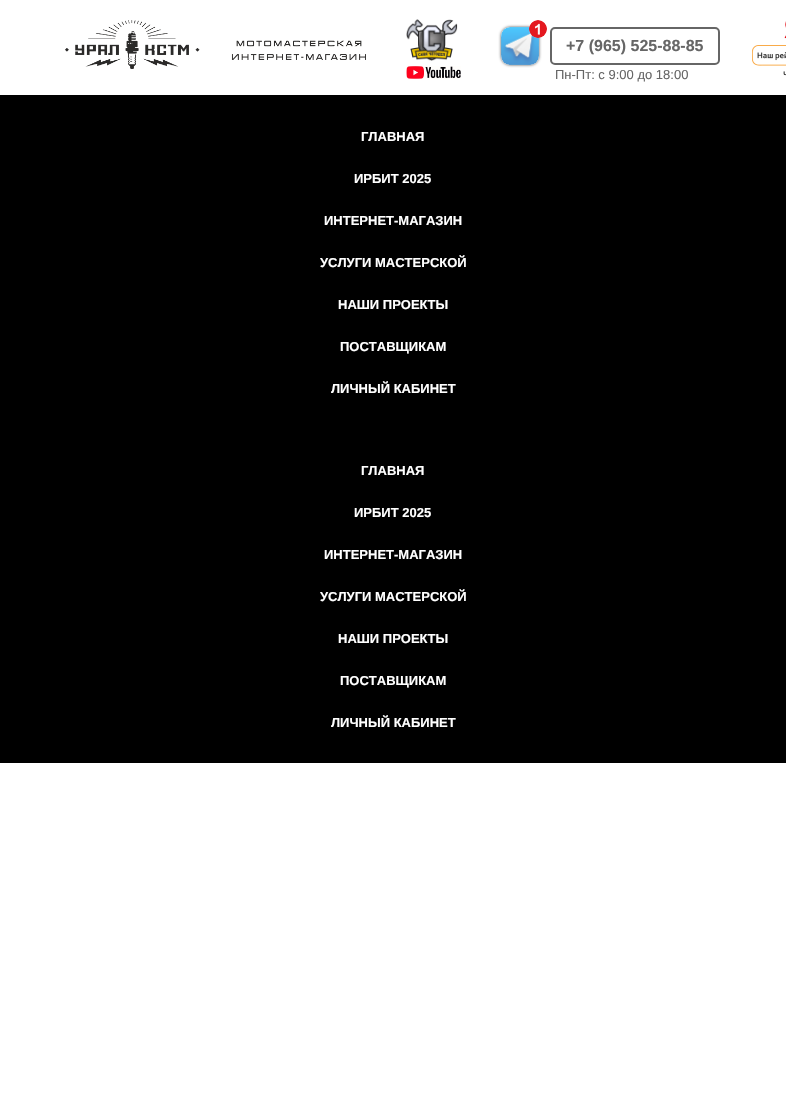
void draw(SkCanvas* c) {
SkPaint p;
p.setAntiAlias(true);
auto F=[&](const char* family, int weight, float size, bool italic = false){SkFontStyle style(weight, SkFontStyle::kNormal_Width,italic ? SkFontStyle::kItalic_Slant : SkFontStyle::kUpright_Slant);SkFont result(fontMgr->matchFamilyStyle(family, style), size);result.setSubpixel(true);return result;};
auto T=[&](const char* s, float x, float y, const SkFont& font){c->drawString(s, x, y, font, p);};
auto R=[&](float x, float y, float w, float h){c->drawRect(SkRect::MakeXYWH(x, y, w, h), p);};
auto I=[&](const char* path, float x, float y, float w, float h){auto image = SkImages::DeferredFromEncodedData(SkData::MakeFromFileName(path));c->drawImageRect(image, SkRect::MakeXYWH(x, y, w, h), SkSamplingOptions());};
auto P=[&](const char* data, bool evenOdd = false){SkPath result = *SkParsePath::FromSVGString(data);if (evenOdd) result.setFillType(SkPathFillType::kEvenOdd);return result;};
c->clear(0xff000000);
p.setColor(0xffffffff);
R(0,0,786,95);
I("1.png",65,20,301,49);
I("2.png",406,19,52,42);
c->save();
c->clipPath(P("M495 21h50v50h-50zm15 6h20c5 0 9 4 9 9v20c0 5-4 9-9 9h-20c-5 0-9-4-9-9v-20c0-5 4-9 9-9z",true),true);
p.setColor(0xff4d4d4d);
p.setMaskFilter(SkMaskFilter::MakeBlur(kNormal_SkBlurStyle, 1.5));
c->drawRoundRect(SkRect::MakeXYWH(501,27,38,38),9,9,p);
p.setMaskFilter(nullptr);
c->restore();
I("4.png",501,27,38,38);
I("3.png",529,20,18,18);
p.setStroke(true);
p.setStrokeWidth(2);
p.setColor(0xff666666);
c->drawRoundRect(SkRect::MakeXYWH(551,28,168,36),4,4,p);
auto f1 = F("Liberation Sans",700,16);
p.setStroke(false);
T("+7 (965) 525-88-85",566,51,f1);
I("5.png",752,21,34,55);
I("6.png",406,66,55,13);
auto f2 = F("Liberation Sans",400,13);
T("Пн-Пт: с 9:00 до 18:00",555,79,f2);
auto f3 = F("Liberation Sans",700,13);
p.setColor(0xffffffff);
T("ГЛАВНАЯ",361,141,f3);
T("ИРБИТ 2025",354,183,f3);
T("ИНТЕРНЕТ-МАГАЗИН",324,225,f3);
T("УСЛУГИ МАСТЕРСКОЙ",320,267,f3);
T("НАШИ ПРОЕКТЫ",338,309,f3);
T("ПОСТАВЩИКАМ",340,351,f3);
T("ЛИЧНЫЙ КАБИНЕТ",331,393,f3);
T("ГЛАВНАЯ",361,475,f3);
T("ИРБИТ 2025",354,517,f3);
T("ИНТЕРНЕТ-МАГАЗИН",324,559,f3);
T("УСЛУГИ МАСТЕРСКОЙ",320,601,f3);
T("НАШИ ПРОЕКТЫ",338,643,f3);
T("ПОСТАВЩИКАМ",340,685,f3);
T("ЛИЧНЫЙ КАБИНЕТ",331,727,f3);
R(0,763,786,330);
}
